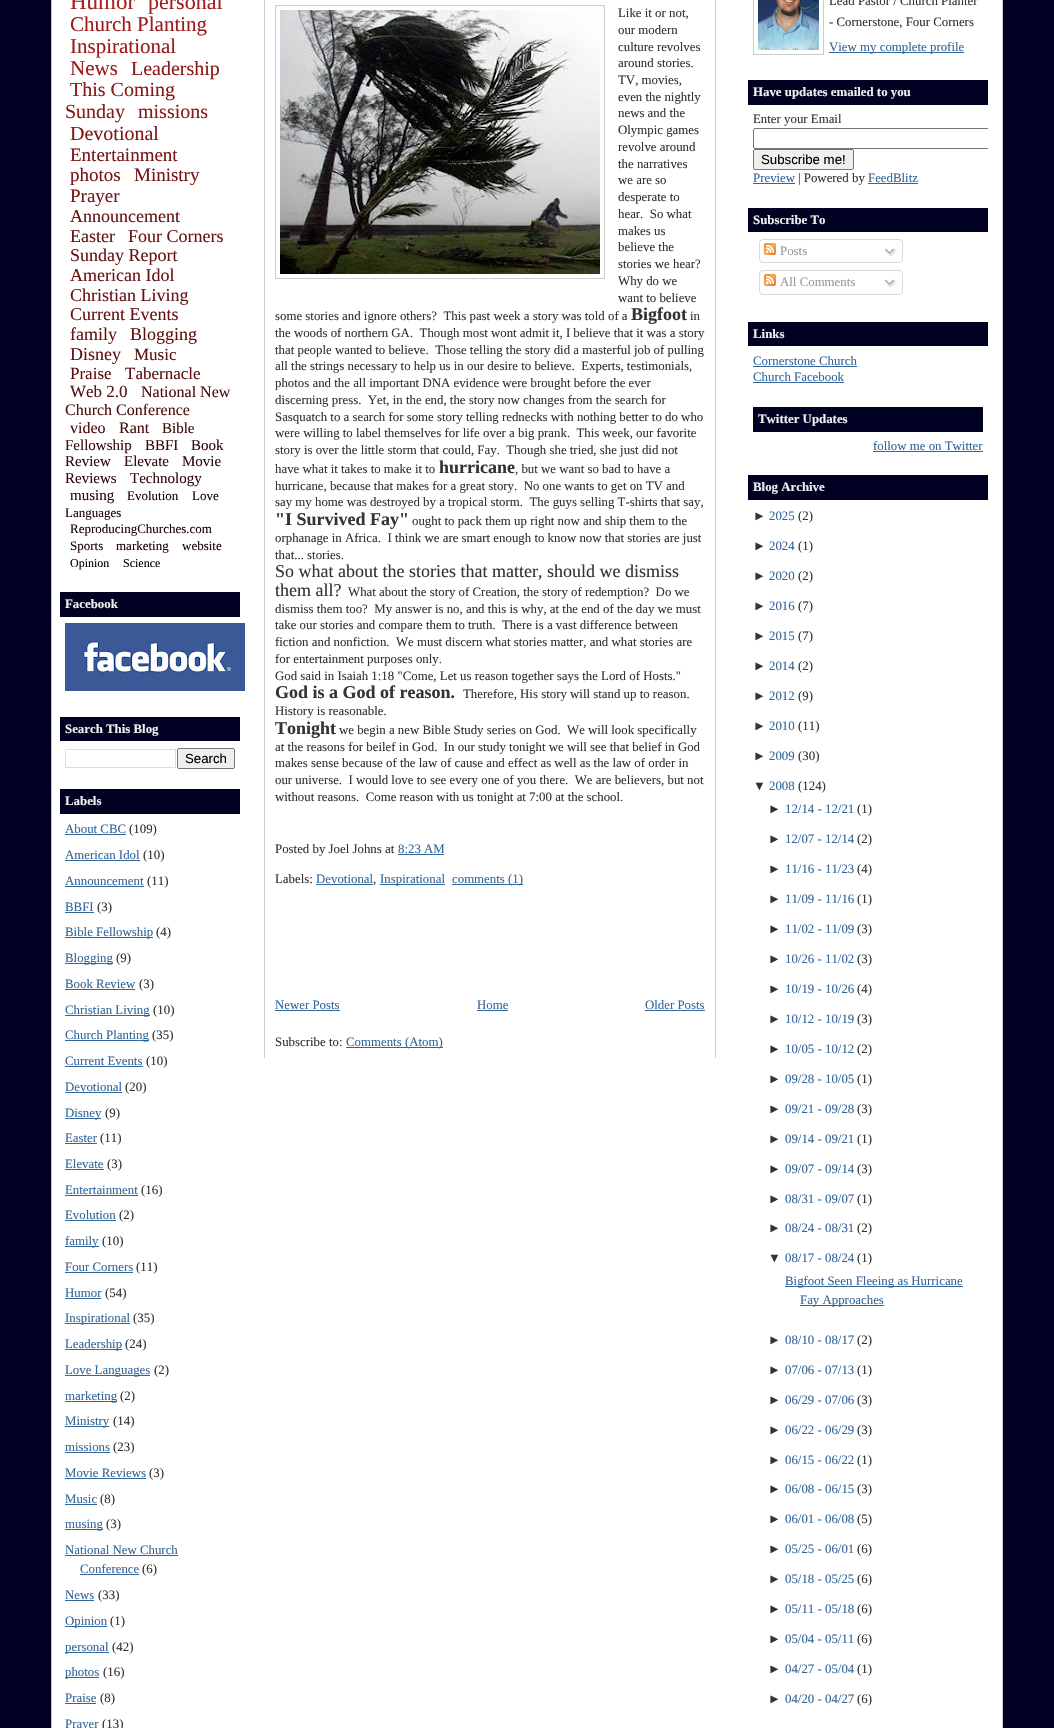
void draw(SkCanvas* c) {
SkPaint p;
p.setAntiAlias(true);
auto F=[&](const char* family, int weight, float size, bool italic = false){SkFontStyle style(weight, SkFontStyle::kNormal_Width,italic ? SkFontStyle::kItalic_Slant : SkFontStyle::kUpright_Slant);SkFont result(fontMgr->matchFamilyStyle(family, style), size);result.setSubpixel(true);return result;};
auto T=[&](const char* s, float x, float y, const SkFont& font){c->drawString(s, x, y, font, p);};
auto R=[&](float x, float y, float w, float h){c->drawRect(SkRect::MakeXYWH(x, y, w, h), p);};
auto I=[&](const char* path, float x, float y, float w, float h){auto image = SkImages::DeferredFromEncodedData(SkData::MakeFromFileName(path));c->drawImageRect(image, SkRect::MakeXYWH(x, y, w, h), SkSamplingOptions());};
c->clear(0xff000023);
p.setColor(0xffffffff);
c->drawRect(SkRect::MakeXYWH(51.5,-.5,951,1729),p);
p.setStroke(true);
p.setStrokeWidth(1);
p.setColor(0xffcccccc);
c->drawRect(SkRect::MakeXYWH(51.5,-.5,951,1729),p);
auto f1 = F("Liberation Serif",400,23);
p.setStroke(false);
p.setColor(0xffae2020);
T("Humor",70,9,f1);
auto f2 = F("Liberation Serif",400,22);
p.setColor(0xffa31e1e);
T("personal",148,9,f2);
auto f3 = F("Liberation Serif",400,21);
p.setColor(0xff9b1c1c);
T("Church Planting",70,31,f3);
T("Inspirational",70,53,f3);
T("News",70,75,f3);
auto f4 = F("Liberation Serif",400,20);
p.setColor(0xff8a1919);
T("Leadership",131,75,f4);
T("This Coming",70,96,f4);
T("Sunday",65,118,f4);
T("missions",138,118,f4);
p.setColor(0xff821818);
T("Devotional",70,140,f4);
auto f5 = F("Liberation Serif",400,19);
p.setColor(0xff791616);
T("Entertainment",70,161,f5);
T("photos",70,181,f5);
p.setColor(0xff731515);
T("Ministry",134,181,f5);
T("Prayer",70,202,f5);
auto f6 = F("Liberation Serif",400,18);
p.setColor(0xff681313);
T("Announcement",70,222,f6);
T("Easter",70,242,f6);
T("Four Corners",128,242,f6);
T("Sunday Report",70,261,f6);
T("American Idol",70,281,f6);
T("Christian Living",70,301,f6);
T("Current Events",70,320,f6);
T("family",70,340,f6);
p.setColor(0xff601111);
T("Blogging",130,340,f6);
T("Disney",70,360,f6);
auto f7 = F("Liberation Serif",400,17);
p.setColor(0xff5a1010);
T("Music",134,360,f7);
T("Praise",70,379,f7);
T("Tabernacle",125,379,f7);
T("Web 2.0",70,397,f7);
auto f8 = F("Liberation Serif",400,16);
p.setColor(0xff4e0e0e);
T("National New",141,397,f8);
T("Church Conference",65,415,f8);
T("video",70,433,f8);
p.setColor(0xff460d0d);
T("Rant",119,433,f8);
auto f9 = F("Liberation Serif",400,15);
p.setColor(0xff3c0b0b);
T("Bible",162,433,f9);
T("Fellowship",65,450,f9);
p.setColor(0xff300808);
T("BBFI",145,450,f9);
T("Book",191,450,f9);
T("Review",65,466,f9);
T("Elevate",124,466,f9);
T("Movie",182,466,f9);
T("Reviews",65,483,f9);
T("Technology",130,483,f9);
T("musing",70,500,f9);
auto f10 = F("Liberation Serif",400,13);
p.setColor(0xff1e0505);
T("Evolution",127,500,f10);
T("Love",192,500,f10);
T("Languages",65,517,f10);
T("ReproducingChurches.com",70,533,f10);
T("Sports",70,550,f10);
T("marketing",116,550,f10);
T("website",182,550,f10);
auto f11 = F("Liberation Serif",400,12);
p.setColor(0xff000000);
T("Opinion",70,567,f11);
T("Science",123,567,f11);
p.setColor(0xff000023);
R(60,592,180,25);
auto f12 = F("Liberation Serif",700,12.85);
p.setColor(0xffefefef);
T("Facebook",65,608,f12);
I("1.png",65,623,180,68);
p.setColor(0xff000023);
R(60,717,180,24);
p.setColor(0xffefefef);
T("Search This Blog",65,733,f12);
p.setStroke(true);
p.setColor(0xffdddddd);
c->drawRect(SkRect::MakeXYWH(65.5,749.5,110,18),p);
p.setStroke(false);
p.setColor(0xffefefef);
c->drawRoundRect(SkRect::MakeXYWH(177.5,748.5,57,20),1.5,1.5,p);
p.setStroke(true);
p.setColor(0xff767676);
c->drawRoundRect(SkRect::MakeXYWH(177.5,748.5,57,20),1.5,1.5,p);
auto f13 = F("Liberation Sans",400,13.25);
p.setStroke(false);
p.setColor(0xff000000);
T("Search",185,763,f13);
p.setColor(0xff000023);
R(60,789,180,25);
p.setColor(0xffefefef);
T("Labels",65,805,f12);
auto f14 = F("Liberation Serif",400,12.85);
p.setColor(0xff336699);
T("About CBC",65,833,f14);
R(65,834,61,1);
p.setColor(0xff333333);
T("(109)",129,833,f14);
p.setColor(0xff336699);
T("American Idol",65,859,f14);
R(65,860,75,1);
p.setColor(0xff333333);
T("(10)",143,859,f14);
p.setColor(0xff336699);
T("Announcement",65,885,f14);
R(65,886,79,1);
p.setColor(0xff333333);
T("(11)",147,885,f14);
p.setColor(0xff336699);
T("BBFI",65,911,f14);
R(65,912,29,1);
p.setColor(0xff333333);
T("(3)",97,911,f14);
p.setColor(0xff336699);
R(65,937,88,1);
T("Bible Fellowship",65,936,f14);
p.setColor(0xff333333);
T("(4)",156,936,f14);
p.setColor(0xff336699);
R(65,963,48,1);
T("Blogging",65,962,f14);
p.setColor(0xff333333);
T("(9)",116,962,f14);
p.setColor(0xff336699);
T("Book Review",65,988,f14);
R(65,989,70,1);
p.setColor(0xff333333);
T("(3)",139,988,f14);
p.setColor(0xff336699);
R(65,1015,85,1);
T("Christian Living",65,1014,f14);
p.setColor(0xff333333);
T("(10)",153,1014,f14);
p.setColor(0xff336699);
R(65,1040,84,1);
T("Church Planting",65,1039,f14);
p.setColor(0xff333333);
T("(35)",152,1039,f14);
p.setColor(0xff336699);
T("Current Events",65,1065,f14);
R(65,1066,78,1);
p.setColor(0xff333333);
T("(10)",146,1065,f14);
p.setColor(0xff336699);
T("Devotional",65,1091,f14);
R(65,1092,57,1);
p.setColor(0xff333333);
T("(20)",125,1091,f14);
p.setColor(0xff336699);
R(65,1118,36,1);
T("Disney",65,1117,f14);
p.setColor(0xff333333);
T("(9)",105,1117,f14);
p.setColor(0xff336699);
T("Easter",65,1142,f14);
R(65,1143,32,1);
p.setColor(0xff333333);
T("(11)",100,1142,f14);
p.setColor(0xff336699);
T("Elevate",65,1168,f14);
R(65,1169,39,1);
p.setColor(0xff333333);
T("(3)",107,1168,f14);
p.setColor(0xff336699);
T("Entertainment",65,1194,f14);
R(65,1195,73,1);
p.setColor(0xff333333);
T("(16)",141,1194,f14);
p.setColor(0xff336699);
T("Evolution",65,1219,f14);
R(65,1220,51,1);
p.setColor(0xff333333);
T("(2)",119,1219,f14);
p.setColor(0xff336699);
R(65,1246,34,1);
T("family",65,1245,f14);
p.setColor(0xff333333);
T("(10)",102,1245,f14);
p.setColor(0xff336699);
T("Four Corners",65,1271,f14);
R(65,1272,68,1);
p.setColor(0xff333333);
T("(11)",136,1271,f14);
p.setColor(0xff336699);
T("Humor",65,1297,f14);
R(65,1298,36,1);
p.setColor(0xff333333);
T("(54)",105,1297,f14);
p.setColor(0xff336699);
R(65,1323,65,1);
T("Inspirational",65,1322,f14);
p.setColor(0xff333333);
T("(35)",133,1322,f14);
p.setColor(0xff336699);
R(65,1349,57,1);
T("Leadership",65,1348,f14);
p.setColor(0xff333333);
T("(24)",125,1348,f14);
p.setColor(0xff336699);
R(65,1375,85,1);
T("Love Languages",65,1374,f14);
p.setColor(0xff333333);
T("(2)",154,1374,f14);
p.setColor(0xff336699);
R(65,1401,52,1);
T("marketing",65,1400,f14);
p.setColor(0xff333333);
T("(2)",120,1400,f14);
p.setColor(0xff336699);
R(65,1426,44,1);
T("Ministry",65,1425,f14);
p.setColor(0xff333333);
T("(14)",113,1425,f14);
p.setColor(0xff336699);
T("missions",65,1451,f14);
R(65,1452,45,1);
p.setColor(0xff333333);
T("(23)",113,1451,f14);
p.setColor(0xff336699);
T("Movie Reviews",65,1477,f14);
R(65,1478,81,1);
p.setColor(0xff333333);
T("(3)",149,1477,f14);
p.setColor(0xff336699);
T("Music",65,1503,f14);
R(65,1504,32,1);
p.setColor(0xff333333);
T("(8)",100,1503,f14);
p.setColor(0xff336699);
R(65,1529,38,1);
T("musing",65,1528,f14);
p.setColor(0xff333333);
T("(3)",106,1528,f14);
p.setColor(0xff336699);
T("National New Church",65,1554,f14);
R(65,1555,113,1);
T("Conference",80,1573,f14);
R(80,1574,59,1);
p.setColor(0xff333333);
T("(6)",142,1573,f14);
p.setColor(0xff336699);
T("News",65,1599,f14);
R(65,1600,29,1);
p.setColor(0xff333333);
T("(33)",98,1599,f14);
p.setColor(0xff336699);
R(65,1626,42,1);
T("Opinion",65,1625,f14);
p.setColor(0xff333333);
T("(1)",110,1625,f14);
p.setColor(0xff336699);
R(65,1652,44,1);
T("personal",65,1651,f14);
p.setColor(0xff333333);
T("(42)",112,1651,f14);
p.setColor(0xff336699);
R(65,1677,34,1);
T("photos",65,1676,f14);
p.setColor(0xff333333);
T("(16)",103,1676,f14);
p.setColor(0xff336699);
T("Praise",65,1702,f14);
R(65,1703,31,1);
p.setColor(0xff333333);
T("(8)",100,1702,f14);
p.setColor(0xff336699);
T("Prayer",65,1728,f14);
p.setColor(0xff333333);
T("(13)",102,1728,f14);
p.setColor(0xffcccccc);
R(715,0,1,1058);
R(264,0,1,1058);
p.setStroke(true);
c->drawRect(SkRect::MakeXYWH(275.5,5.5,329,273),p);
I("2.png",280,10,320,264);
p.setStroke(false);
p.setColor(0xff333333);
T("Like it or not,",618,17,f14);
T("our modern",618,34,f14);
T("culture revolves",618,51,f14);
T("around stories.",618,67,f14);
T("TV, movies,",618,84,f14);
T("even the nightly",618,101,f14);
T("news and the",618,117,f14);
T("Olympic games",618,134,f14);
T("revolve around",618,151,f14);
T("the narratives",618,168,f14);
T("we are so",618,184,f14);
T("desperate to",618,201,f14);
T("hear.  So what",618,218,f14);
T("makes us",618,235,f14);
T("believe the",618,251,f14);
T("stories we hear?",618,268,f14);
T("Why do we",618,285,f14);
T("want to believe",618,302,f14);
T("some stories and ignore others?  This past week a story was told of a",275,320,f14);
auto f15 = F("Liberation Serif",700,18);
T("Bigfoot",631,320,f15);
T("in",690,320,f14);
T("the woods of northern GA.  Though most wont admit it, I believe that it was a story",275,337,f14);
T("that people wanted to believe.  Those telling the story did a masterful job of pulling",275,354,f14);
T("all the strings necessary to help us in our desire to believe.  Experts, testimonials,",275,370,f14);
T("photos and the all important DNA evidence were brought before the ever",275,387,f14);
T("discerning press.  Yet, in the end, the story now changes from the search for",275,404,f14);
T("Sasquatch to a search for some story telling rednecks with nothing better to do who",275,421,f14);
T("were willing to label themselves for life over a big prank.  This week, our favorite",275,437,f14);
T("story is over the little storm that could, Fay.  Though she tried, she just did not",275,454,f14);
T("have what it takes to make it to",275,473,f14);
T("hurricane",439,473,f15);
T(", but we want so bad to have a",515,473,f14);
T("hurricane, because that makes for a great story.  No one wants to get on TV and",275,490,f14);
T("say my home was destroyed by a tropical storm.  The guys selling T-shirts that say,",275,506,f14);
T("\"I Survived Fay\"",275,525,f15);
T("ought to pack them up right now and ship them to the",412,525,f14);
T("orphanage in Africa.  I think we are smart enough to know now that stories are just",275,542,f14);
T("that... stories.",275,559,f14);
T("So what about the stories that matter, should we dismiss",275,577,f6);
T("them all?",275,596,f6);
T("What about the story of Creation, the story of redemption?  Do we",348,596,f14);
T("dismiss them too?  My answer is no, and this is why, at the end of the day we must",275,613,f14);
T("take our stories and compare them to truth.  There is a vast difference between",275,629,f14);
T("fiction and nonfiction.  We must discern what stories matter, and what stories are",275,646,f14);
T("for entertainment purposes only.",275,663,f14);
T("God said in Isaiah 1:18 \"Come, Let us reason together says the Lord of Hosts.\"",275,680,f14);
T("God is a God of reason.",275,698,f15);
T("Therefore, His story will stand up to reason.",463,698,f14);
T("History is reasonable.",275,715,f14);
T("Tonight",275,734,f15);
T("we begin a new Bible Study series on God.  We will look specifically",339,734,f14);
T("at the reasons for beilef in God.  In our study tonight we will see that belief in God",275,751,f14);
T("makes sense because of the law of cause and effect as well as the law of order in",275,767,f14);
T("our universe.  I would love to see every one of you there.  We are believers, but not",275,784,f14);
T("without reasons.  Come reason with us tonight at 7:00 at the school.",275,801,f14);
T("Posted by Joel Johns at",275,853,f14);
p.setColor(0xff336699);
T("8:23 AM",398,853,f14);
R(398,854,46,1);
p.setColor(0xff333333);
T("Labels:",275,883,f14);
p.setColor(0xff336699);
T("Devotional",316,883,f14);
p.setColor(0xff333333);
T(",",373,883,f14);
p.setColor(0xff336699);
R(316,884,57,1);
R(380,884,65,1);
T("Inspirational",380,883,f14);
R(452,884,71,1);
T("comments (1)",452,883,f14);
T("Newer Posts",275,1009,f14);
R(275,1010,65,1);
T("Home",477,1009,f14);
R(477,1010,31,1);
T("Older Posts",645,1009,f14);
R(645,1010,60,1);
p.setColor(0xff333333);
T("Subscribe to:",275,1046,f14);
p.setColor(0xff336699);
R(346,1047,97,1);
T("Comments (Atom)",346,1046,f14);
p.setStroke(true);
p.setColor(0xffcccccc);
c->drawRect(SkRect::MakeXYWH(753.5,-.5,70,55),p);
I("3.png",758,0,61,50);
p.setStroke(false);
p.setColor(0xff333333);
T("Lead Pastor / Church Planter",829,5,f14);
T("- Cornerstone, Four Corners",829,26,f14);
p.setColor(0xff336699);
R(829,52,135,1);
T("View my complete profile",829,51,f14);
p.setColor(0xff000023);
R(748,80,240,25);
p.setColor(0xffefefef);
T("Have updates emailed to you",753,96,f12);
p.setColor(0xff333333);
T("Enter your Email",753,123,f14);
c->save();
c->clipRect(SkRect::MakeXYWH(748,0,240,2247));
p.setStroke(true);
p.setColor(0xff767676);
c->drawRoundRect(SkRect::MakeXYWH(753.5,128.5,264,20),1.5,1.5,p);
c->restore();
p.setStroke(false);
p.setColor(0xffefefef);
c->drawRoundRect(SkRect::MakeXYWH(753.5,149.5,100,20),1.5,1.5,p);
p.setStroke(true);
p.setColor(0xff767676);
c->drawRoundRect(SkRect::MakeXYWH(753.5,149.5,100,20),1.5,1.5,p);
p.setStroke(false);
p.setColor(0xff000000);
T("Subscribe me!",761,164,f13);
p.setColor(0xff336699);
T("Preview",753,182,f14);
R(753,183,42,1);
p.setColor(0xff333333);
T("| Powered by",798,182,f14);
p.setColor(0xff336699);
T("FeedBlitz",868,182,f14);
R(868,183,50,1);
p.setColor(0xff000023);
R(748,208,240,24);
p.setColor(0xffefefef);
T("Subscribe To",753,224,f12);
I("4.png",759,239,144,21);
I("5.png",764,243,12,12);
p.setColor(0xff999999);
T("Posts",780,255,f14);
I("6.png",884,248,13,9);
I("7.png",759,260,144,3);
I("8.png",759,270,144,22);
I("5.png",764,274,12,12);
T("All Comments",780,286,f14);
I("6.png",884,279,13,9);
I("7.png",759,292,144,3);
p.setColor(0xff000023);
R(748,322,240,24);
p.setColor(0xffefefef);
T("Links",753,338,f12);
p.setColor(0xff336699);
T("Cornerstone Church",753,365,f14);
R(753,366,104,1);
T("Church Facebook",753,381,f14);
R(753,382,91,1);
p.setColor(0xff000023);
R(753,407,230,25);
p.setColor(0xffefefef);
T("Twitter Updates",758,423,f12);
p.setColor(0xff336699);
T("follow me on Twitter",873,450,f14);
R(873,451,110,1);
p.setColor(0xff000023);
R(748,475,240,25);
p.setColor(0xffefefef);
T("Blog Archive",753,491,f12);
auto f16 = F("Liberation Sans",400,12.85);
p.setColor(0xff333333);
T("►",753,520,f16);
p.setColor(0xff336699);
T("2025",769,520,f14);
p.setColor(0xff333333);
T("(2)",798,520,f14);
T("►",753,550,f16);
p.setColor(0xff336699);
T("2024",769,550,f14);
p.setColor(0xff333333);
T("(1)",798,550,f14);
T("►",753,580,f16);
p.setColor(0xff336699);
T("2020",769,580,f14);
p.setColor(0xff333333);
T("(2)",798,580,f14);
T("►",753,610,f16);
p.setColor(0xff336699);
T("2016",769,610,f14);
p.setColor(0xff333333);
T("(7)",798,610,f14);
T("►",753,640,f16);
p.setColor(0xff336699);
T("2015",769,640,f14);
p.setColor(0xff333333);
T("(7)",798,640,f14);
T("►",753,670,f16);
p.setColor(0xff336699);
T("2014",769,670,f14);
p.setColor(0xff333333);
T("(2)",798,670,f14);
T("►",753,700,f16);
p.setColor(0xff336699);
T("2012",769,700,f14);
p.setColor(0xff333333);
T("(9)",798,700,f14);
T("►",753,730,f16);
p.setColor(0xff336699);
T("2010",769,730,f14);
p.setColor(0xff333333);
T("(11)",798,730,f14);
T("►",753,760,f16);
p.setColor(0xff336699);
T("2009",769,760,f14);
p.setColor(0xff333333);
T("(30)",798,760,f14);
T("▼",753,790,f16);
p.setColor(0xff336699);
T("2008",769,790,f14);
p.setColor(0xff333333);
T("(124)",798,790,f14);
T("►",768,813,f16);
p.setColor(0xff336699);
T("12/14 - 12/21",785,813,f14);
p.setColor(0xff333333);
T("(1)",857,813,f14);
T("►",768,843,f16);
p.setColor(0xff336699);
T("12/07 - 12/14",785,843,f14);
p.setColor(0xff333333);
T("(2)",857,843,f14);
T("►",768,873,f16);
p.setColor(0xff336699);
T("11/16 - 11/23",785,873,f14);
p.setColor(0xff333333);
T("(4)",857,873,f14);
T("►",768,903,f16);
p.setColor(0xff336699);
T("11/09 - 11/16",785,903,f14);
p.setColor(0xff333333);
T("(1)",857,903,f14);
T("►",768,933,f16);
p.setColor(0xff336699);
T("11/02 - 11/09",785,933,f14);
p.setColor(0xff333333);
T("(3)",857,933,f14);
T("►",768,963,f16);
p.setColor(0xff336699);
T("10/26 - 11/02",785,963,f14);
p.setColor(0xff333333);
T("(3)",857,963,f14);
T("►",768,993,f16);
p.setColor(0xff336699);
T("10/19 - 10/26",785,993,f14);
p.setColor(0xff333333);
T("(4)",857,993,f14);
T("►",768,1023,f16);
p.setColor(0xff336699);
T("10/12 - 10/19",785,1023,f14);
p.setColor(0xff333333);
T("(3)",857,1023,f14);
T("►",768,1053,f16);
p.setColor(0xff336699);
T("10/05 - 10/12",785,1053,f14);
p.setColor(0xff333333);
T("(2)",857,1053,f14);
T("►",768,1083,f16);
p.setColor(0xff336699);
T("09/28 - 10/05",785,1083,f14);
p.setColor(0xff333333);
T("(1)",857,1083,f14);
T("►",768,1113,f16);
p.setColor(0xff336699);
T("09/21 - 09/28",785,1113,f14);
p.setColor(0xff333333);
T("(3)",857,1113,f14);
T("►",768,1143,f16);
p.setColor(0xff336699);
T("09/14 - 09/21",785,1143,f14);
p.setColor(0xff333333);
T("(1)",857,1143,f14);
T("►",768,1173,f16);
p.setColor(0xff336699);
T("09/07 - 09/14",785,1173,f14);
p.setColor(0xff333333);
T("(3)",857,1173,f14);
T("►",768,1203,f16);
p.setColor(0xff336699);
T("08/31 - 09/07",785,1203,f14);
p.setColor(0xff333333);
T("(1)",857,1203,f14);
T("►",768,1232,f16);
p.setColor(0xff336699);
T("08/24 - 08/31",785,1232,f14);
p.setColor(0xff333333);
T("(2)",857,1232,f14);
T("▼",768,1262,f16);
p.setColor(0xff336699);
T("08/17 - 08/24",785,1262,f14);
p.setColor(0xff333333);
T("(1)",857,1262,f14);
p.setColor(0xff336699);
R(785,1286,178,1);
T("Bigfoot Seen Fleeing as Hurricane",785,1285,f14);
R(800,1305,84,1);
T("Fay Approaches",800,1304,f14);
p.setColor(0xff333333);
T("►",768,1344,f16);
p.setColor(0xff336699);
T("08/10 - 08/17",785,1344,f14);
p.setColor(0xff333333);
T("(2)",857,1344,f14);
T("►",768,1374,f16);
p.setColor(0xff336699);
T("07/06 - 07/13",785,1374,f14);
p.setColor(0xff333333);
T("(1)",857,1374,f14);
T("►",768,1404,f16);
p.setColor(0xff336699);
T("06/29 - 07/06",785,1404,f14);
p.setColor(0xff333333);
T("(3)",857,1404,f14);
T("►",768,1434,f16);
p.setColor(0xff336699);
T("06/22 - 06/29",785,1434,f14);
p.setColor(0xff333333);
T("(3)",857,1434,f14);
T("►",768,1464,f16);
p.setColor(0xff336699);
T("06/15 - 06/22",785,1464,f14);
p.setColor(0xff333333);
T("(1)",857,1464,f14);
T("►",768,1493,f16);
p.setColor(0xff336699);
T("06/08 - 06/15",785,1493,f14);
p.setColor(0xff333333);
T("(3)",857,1493,f14);
T("►",768,1523,f16);
p.setColor(0xff336699);
T("06/01 - 06/08",785,1523,f14);
p.setColor(0xff333333);
T("(5)",857,1523,f14);
T("►",768,1553,f16);
p.setColor(0xff336699);
T("05/25 - 06/01",785,1553,f14);
p.setColor(0xff333333);
T("(6)",857,1553,f14);
T("►",768,1583,f16);
p.setColor(0xff336699);
T("05/18 - 05/25",785,1583,f14);
p.setColor(0xff333333);
T("(6)",857,1583,f14);
T("►",768,1613,f16);
p.setColor(0xff336699);
T("05/11 - 05/18",785,1613,f14);
p.setColor(0xff333333);
T("(6)",857,1613,f14);
T("►",768,1643,f16);
p.setColor(0xff336699);
T("05/04 - 05/11",785,1643,f14);
p.setColor(0xff333333);
T("(6)",857,1643,f14);
T("►",768,1673,f16);
p.setColor(0xff336699);
T("04/27 - 05/04",785,1673,f14);
p.setColor(0xff333333);
T("(1)",857,1673,f14);
T("►",768,1703,f16);
p.setColor(0xff336699);
T("04/20 - 04/27",785,1703,f14);
p.setColor(0xff333333);
T("(6)",857,1703,f14);
}
